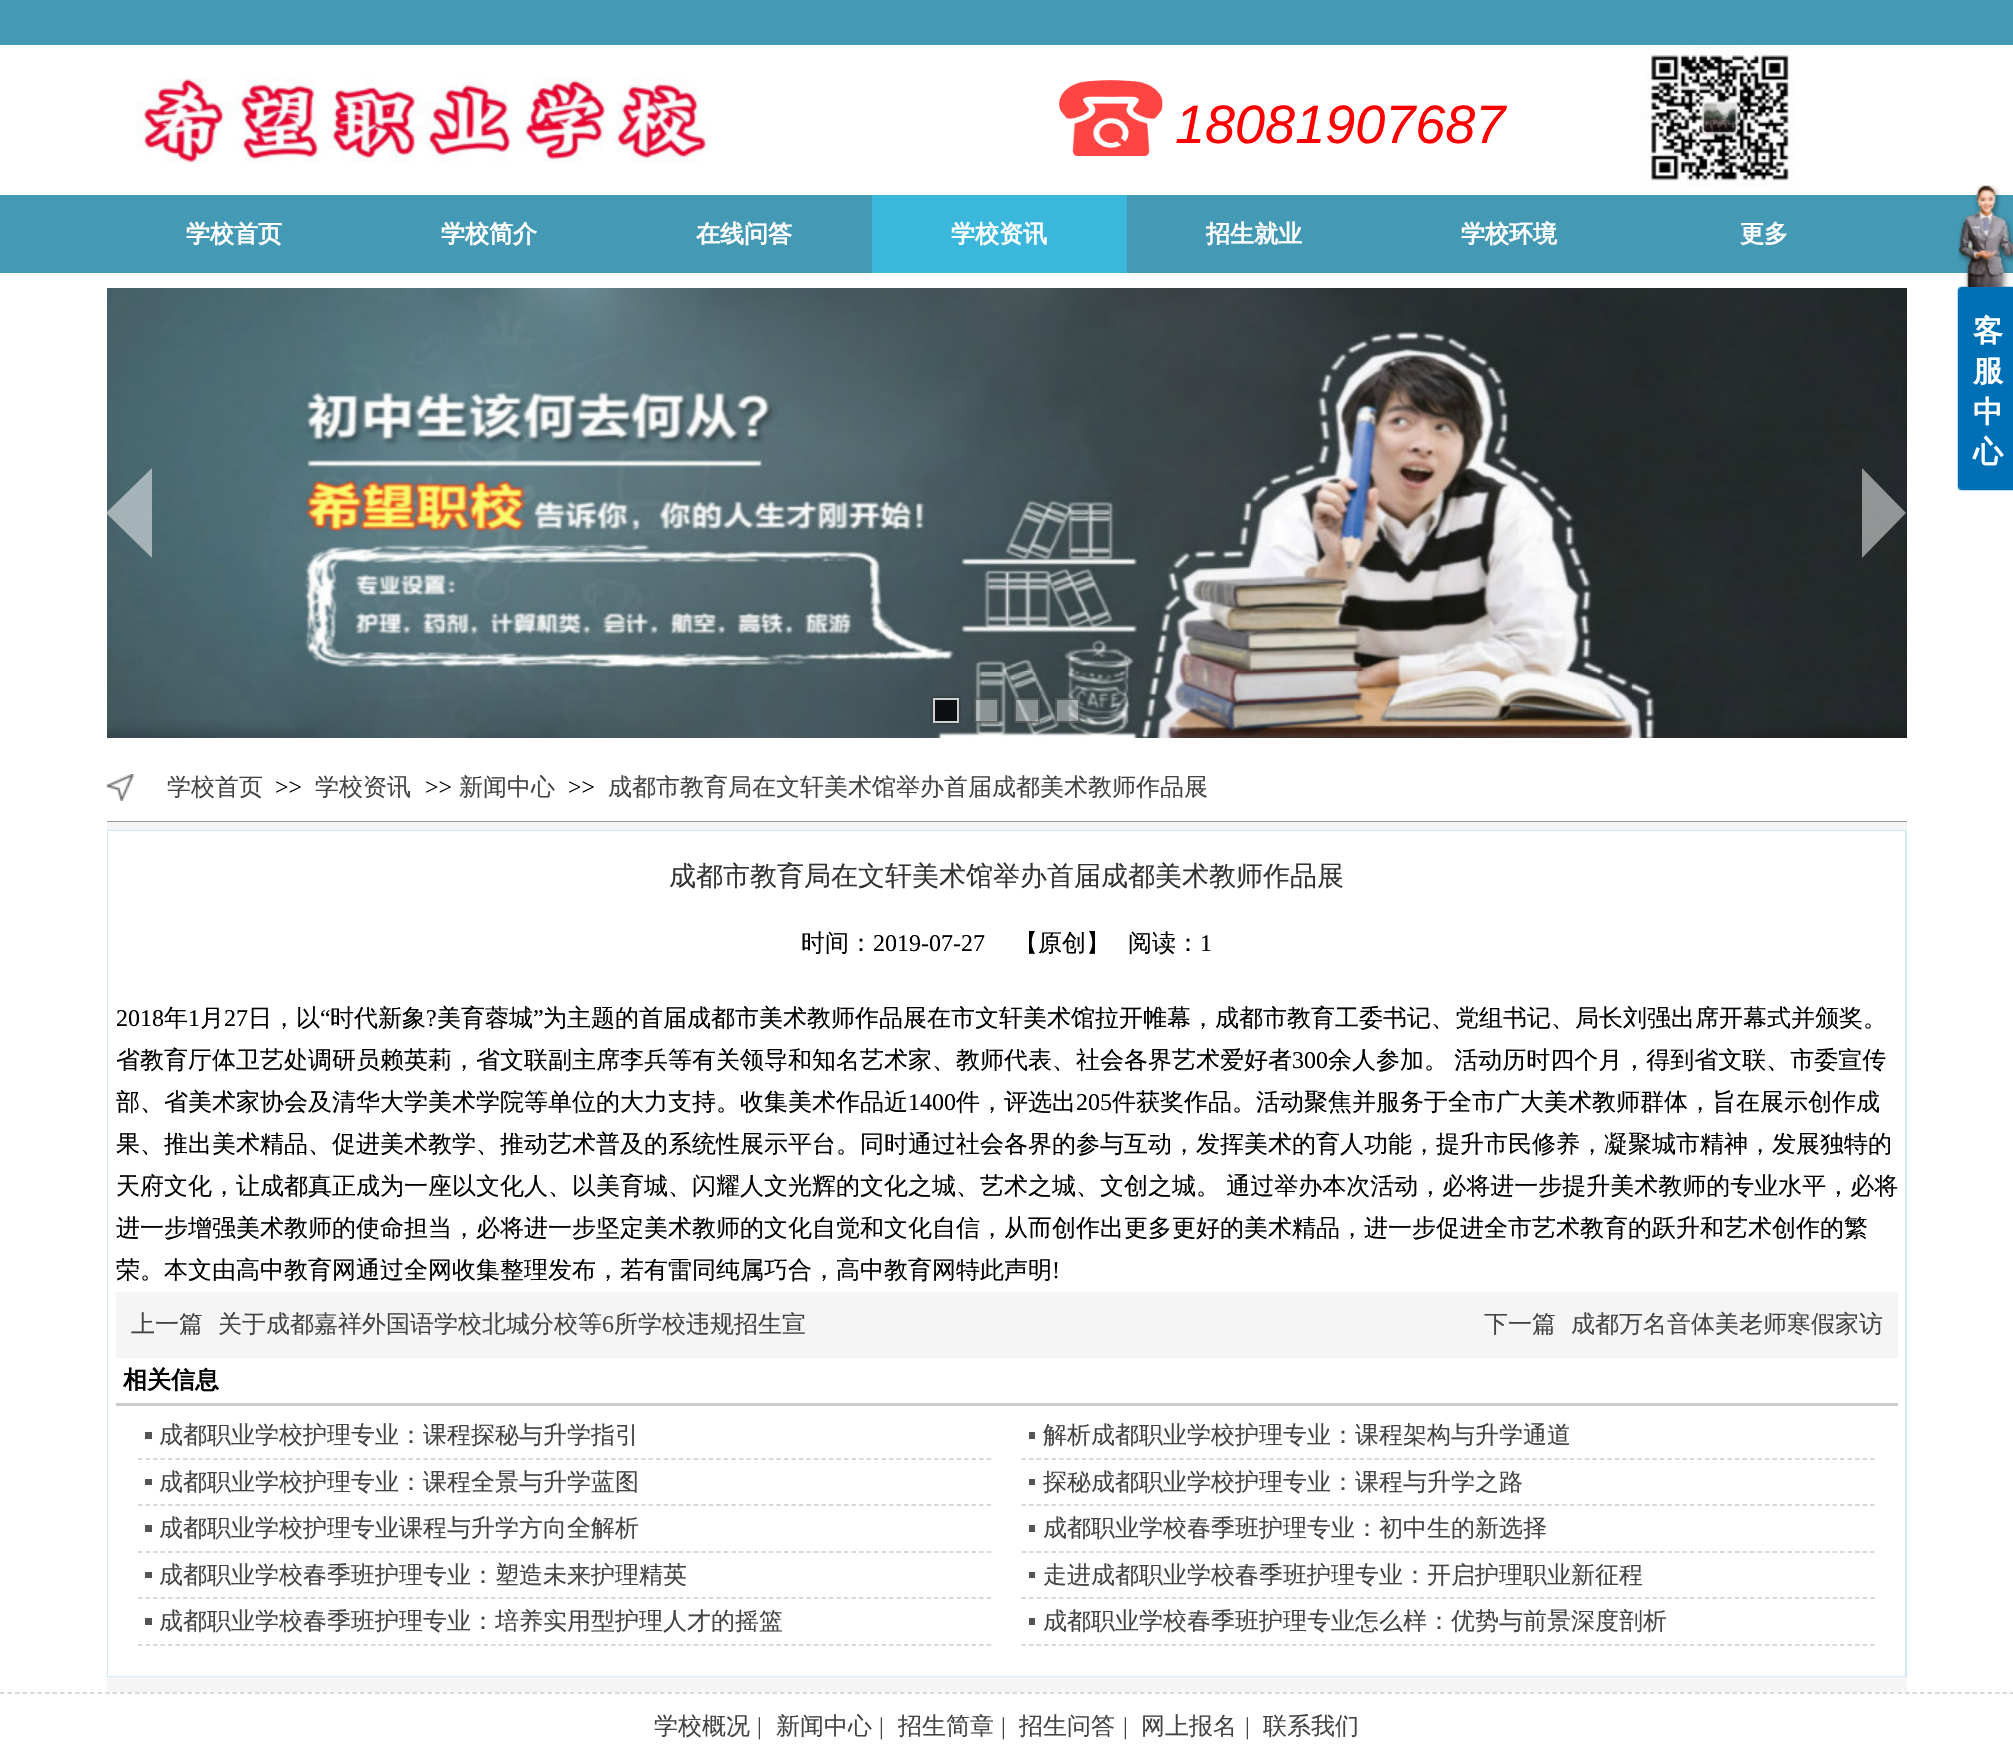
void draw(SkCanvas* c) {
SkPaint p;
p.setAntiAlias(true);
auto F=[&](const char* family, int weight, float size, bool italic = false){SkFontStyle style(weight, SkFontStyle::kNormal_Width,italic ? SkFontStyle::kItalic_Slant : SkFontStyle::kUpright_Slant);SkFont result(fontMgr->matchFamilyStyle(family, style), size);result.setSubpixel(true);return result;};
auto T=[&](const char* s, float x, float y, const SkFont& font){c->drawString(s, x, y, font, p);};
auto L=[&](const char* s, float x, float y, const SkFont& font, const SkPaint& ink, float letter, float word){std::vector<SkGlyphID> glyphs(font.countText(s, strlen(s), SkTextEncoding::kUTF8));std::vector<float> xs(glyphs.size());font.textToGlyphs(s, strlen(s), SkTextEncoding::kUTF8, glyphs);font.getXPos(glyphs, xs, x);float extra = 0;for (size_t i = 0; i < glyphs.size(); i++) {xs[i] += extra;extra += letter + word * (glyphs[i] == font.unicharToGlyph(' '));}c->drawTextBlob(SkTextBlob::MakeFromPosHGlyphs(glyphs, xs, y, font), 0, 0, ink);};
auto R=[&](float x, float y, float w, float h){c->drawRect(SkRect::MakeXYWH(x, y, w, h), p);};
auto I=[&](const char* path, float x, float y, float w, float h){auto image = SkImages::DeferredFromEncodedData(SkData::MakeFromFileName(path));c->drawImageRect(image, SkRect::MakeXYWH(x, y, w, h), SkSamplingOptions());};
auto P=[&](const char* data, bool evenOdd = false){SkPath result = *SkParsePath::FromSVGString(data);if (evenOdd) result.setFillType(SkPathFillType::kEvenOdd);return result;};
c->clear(0xffffffff);
I("1.png",136,78,577,86);
I("2.png",1059,80,104,76);
auto f1 = F("Liberation Sans",400,54,true);
p.setColor(0xffff0000);
T("18081907687",1175,143,f1);
I("3.png",1641,47,156,142);
p.setColor(0xff449ab5);
R(0,0,2013,45);
p.setColor(0xff4499b5);
R(0,195,2013,78);
auto f2 = F("WenQuanYi Zen Hei",700,24);
p.setColor(0xffffffff);
T("学校首页",186,242,f2);
T("学校简介",441,242,f2);
T("在线问答",696,242,f2);
p.setColor(0xff3bb7db);
R(872,195,255,78);
p.setColor(0xffffffff);
T("学校资讯",951,242,f2);
T("招生就业",1206,242,f2);
T("学校环境",1461,242,f2);
T("更多",1740,242,f2);
I("4.png",107,288,1800,450);
p.setColor(0x80ffffff);
c->drawPath(P("M152 468v90l-46-45z"),p);
c->drawPath(P("M1862 558v-90l44 45z"),p);
c->save();
c->clipPath(P("M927 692h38v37h-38zm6 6h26v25h-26z",true),true);
p.setColor(0x7a000000);
p.setMaskFilter(SkMaskFilter::MakeBlur(kNormal_SkBlurStyle, 1.5));
c->drawRect(SkRect::MakeXYWH(933,698,26,25),p);
p.setMaskFilter(nullptr);
c->restore();
p.setColor(0xcc000000);
R(933,698,26,25);
p.setStroke(true);
p.setStrokeWidth(2);
p.setColor(0xccffffff);
c->drawRect(SkRect::MakeXYWH(934,699,24,23),p);
c->save();
c->clipPath(P("M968 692h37v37h-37zm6 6h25v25h-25z",true),true);
p.setStroke(false);
p.setColor(0x3d000000);
p.setMaskFilter(SkMaskFilter::MakeBlur(kNormal_SkBlurStyle, 1.5));
c->drawRect(SkRect::MakeXYWH(974,698,25,25),p);
p.setMaskFilter(nullptr);
c->restore();
p.setColor(0x66ffffff);
R(974,698,25,25);
p.setStroke(true);
p.setColor(0x66000000);
c->drawRect(SkRect::MakeXYWH(975,699,23,23),p);
c->save();
c->clipPath(P("M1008 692h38v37h-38zm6 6h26v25h-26z",true),true);
p.setStroke(false);
p.setColor(0x3d000000);
p.setMaskFilter(SkMaskFilter::MakeBlur(kNormal_SkBlurStyle, 1.5));
c->drawRect(SkRect::MakeXYWH(1014,698,26,25),p);
p.setMaskFilter(nullptr);
c->restore();
p.setColor(0x66ffffff);
R(1014,698,26,25);
p.setStroke(true);
p.setColor(0x66000000);
c->drawRect(SkRect::MakeXYWH(1015,699,24,23),p);
c->save();
c->clipPath(P("M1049 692h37v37h-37zm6 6h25v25h-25z",true),true);
p.setStroke(false);
p.setColor(0x3d000000);
p.setMaskFilter(SkMaskFilter::MakeBlur(kNormal_SkBlurStyle, 1.5));
c->drawRect(SkRect::MakeXYWH(1055,698,25,25),p);
p.setMaskFilter(nullptr);
c->restore();
p.setColor(0x66ffffff);
R(1055,698,25,25);
p.setStroke(true);
p.setColor(0x66000000);
c->drawRect(SkRect::MakeXYWH(1056,699,23,23),p);
I("6.png",1957,286,56,205);
I("5.png",1958,185,55,102);
auto f3 = F("WenQuanYi Zen Hei",700,30);
p.setStroke(false);
p.setColor(0xffffffff);
T("客",1973,341,f3);
T("服",1973,381,f3);
T("中",1973,422,f3);
T("心",1973,462,f3);
p.setColor(0xff999999);
R(107,821,1800,1);
I("7.png",106,774,28,27);
auto f4 = F("WenQuanYi Zen Hei",500,24);
p.setColor(0xff444444);
T("学校首页",167,795,f4);
auto f5 = F("Liberation Serif",400,24);
p.setColor(0xff000000);
T(">>",275,795,f5);
p.setColor(0xff444444);
T("学校资讯",315,795,f4);
p.setColor(0xff000000);
T(">>",425,795,f5);
p.setColor(0xff444444);
T("新闻中心",459,795,f4);
p.setColor(0xff000000);
T(">>",568,795,f5);
p.setColor(0xff444444);
T("成都市教育局在文轩美术馆举办首届成都美术教师作品展",608,795,f4);
p.setColor(0xfff5f5f5);
R(107,822,1800,870);
p.setStroke(true);
p.setColor(0xffcfebf6);
c->drawRect(SkRect::MakeXYWH(108,831,1798,845),p);
p.setStroke(false);
p.setColor(0xffffffff);
R(108,831,1797,845);
auto f6 = F("WenQuanYi Zen Hei",500,27);
p.setColor(0xff333333);
T("成都市教育局在文轩美术馆举办首届成都美术教师作品展",669,885,f6);
p.setColor(0xff000000);
T("时间：",801,951,f4);
T("2019-07-27",873,951,f5);
T("【原创】",1014,951,f4);
T("阅读：",1128,951,f4);
T("1",1200,951,f5);
T("2018",116,1026,f5);
T("年",164,1026,f4);
T("1",188,1026,f5);
T("月",200,1026,f4);
T("27",224,1026,f5);
T("日，以",248,1026,f4);
T("“",320,1026,f5);
T("时代新象",330,1026,f4);
T("?",426,1026,f5);
T("美育蓉城",437,1026,f4);
T("”",533,1026,f5);
T("为主题的首届成都市美术教师作品展在市文轩美术馆拉开帷幕，成都市教育工委书记、党组书记、局长刘强出席开幕式并颁奖。",543,1026,f4);
T("省教育厅体卫艺处调研员赖英莉，省文联副主席李兵等有关领导和知名艺术家、教师代表、社会各界艺术爱好者",116,1068,f4);
T("300",1292,1068,f5);
L("余人参加。 活动历时四个月，得到省文联、市委宣传",1328,1068,f4,p,0,-1);
T("部、省美术家协会及清华大学美术学院等单位的大力支持。收集美术作品近",116,1110,f4);
T("1400",908,1110,f5);
T("件，评选出",956,1110,f4);
T("205",1076,1110,f5);
T("件获奖作品。活动聚焦并服务于全市广大美术教师群体，旨在展示创作成",1112,1110,f4);
T("果、推出美术精品、促进美术教学、推动艺术普及的系统性展示平台。同时通过社会各界的参与互动，发挥美术的育人功能，提升市民修养，凝聚城市精神，发展独特的",116,1152,f4);
L("天府文化，让成都真正成为一座以文化人、以美育城、闪耀人文光辉的文化之城、艺术之城、文创之城。 通过举办本次活动，必将进一步提升美术教师的专业水平，必将",116,1194,f4,p,0,-1);
T("进一步增强美术教师的使命担当，必将进一步坚定美术教师的文化自觉和文化自信，从而创作出更多更好的美术精品，进一步促进全市艺术教育的跃升和艺术创作的繁",116,1236,f4);
T("荣。本文由高中教育网通过全网收集整理发布，若有雷同纯属巧合，高中教育网特此声明",116,1278,f4);
T("!",1052,1278,f5);
p.setColor(0xfff5f5f5);
R(116,1292,1782,66);
p.setColor(0xff444444);
T("上一篇",131,1332,f4);
T("关于成都嘉祥外国语学校北城分校等",218,1332,f4);
T("6",602,1332,f5);
T("所学校违规招生宣",614,1332,f4);
T("下一篇",1484,1332,f4);
T("成都万名音体美老师寒假家访",1571,1332,f4);
p.setColor(0xffcccccc);
R(116,1403,1782,3);
p.setColor(0xff000000);
T("相关信息",123,1388,f2);
p.setStroke(true);
p.setStrokeWidth(1.5);
p.setColor(0xffcccccc);
p.setPathEffect(SkDashPathEffect::Make({{4.5f,3.01f}}, 0));
c->drawPath(P("M138 1459h853.5"),p);
p.setPathEffect(nullptr);
p.setStroke(false);
p.setColor(0xff555555);
R(145,1432,7,7);
p.setColor(0xff444444);
T("成都职业学校护理专业：课程探秘与升学指引",159,1443,f4);
p.setStroke(true);
p.setColor(0xffcccccc);
p.setPathEffect(SkDashPathEffect::Make({{4.5f,3.01f}}, 0));
c->drawPath(P("M1021.5 1459h853.5"),p);
p.setPathEffect(nullptr);
p.setStroke(false);
p.setColor(0xff555555);
R(1029,1432,6,7);
p.setColor(0xff444444);
T("解析成都职业学校护理专业：课程架构与升学通道",1043,1443,f4);
p.setStroke(true);
p.setColor(0xffcccccc);
p.setPathEffect(SkDashPathEffect::Make({{4.5f,3.01f}}, 0));
c->drawPath(P("M138 1505h853.5"),p);
p.setPathEffect(nullptr);
p.setStroke(false);
p.setColor(0xff555555);
R(145,1479,7,6);
p.setColor(0xff444444);
T("成都职业学校护理专业：课程全景与升学蓝图",159,1490,f4);
p.setStroke(true);
p.setColor(0xffcccccc);
p.setPathEffect(SkDashPathEffect::Make({{4.5f,3.01f}}, 0));
c->drawPath(P("M1021.5 1505h853.5"),p);
p.setPathEffect(nullptr);
p.setStroke(false);
p.setColor(0xff555555);
R(1029,1479,6,6);
p.setColor(0xff444444);
T("探秘成都职业学校护理专业：课程与升学之路",1043,1490,f4);
p.setStroke(true);
p.setColor(0xffcccccc);
p.setPathEffect(SkDashPathEffect::Make({{4.5f,3.01f}}, 0));
c->drawPath(P("M138 1552h853.5"),p);
p.setPathEffect(nullptr);
p.setStroke(false);
p.setColor(0xff555555);
R(145,1525,7,7);
p.setColor(0xff444444);
T("成都职业学校护理专业课程与升学方向全解析",159,1536,f4);
p.setStroke(true);
p.setColor(0xffcccccc);
p.setPathEffect(SkDashPathEffect::Make({{4.5f,3.01f}}, 0));
c->drawPath(P("M1021.5 1552h853.5"),p);
p.setPathEffect(nullptr);
p.setStroke(false);
p.setColor(0xff555555);
R(1029,1525,6,7);
p.setColor(0xff444444);
T("成都职业学校春季班护理专业：初中生的新选择",1043,1536,f4);
p.setStroke(true);
p.setColor(0xffcccccc);
p.setPathEffect(SkDashPathEffect::Make({{4.5f,3.01f}}, 0));
c->drawPath(P("M138 1598h853.5"),p);
p.setPathEffect(nullptr);
p.setStroke(false);
p.setColor(0xff555555);
R(145,1572,7,6);
p.setColor(0xff444444);
T("成都职业学校春季班护理专业：塑造未来护理精英",159,1583,f4);
p.setStroke(true);
p.setColor(0xffcccccc);
p.setPathEffect(SkDashPathEffect::Make({{4.5f,3.01f}}, 0));
c->drawPath(P("M1021.5 1598h853.5"),p);
p.setPathEffect(nullptr);
p.setStroke(false);
p.setColor(0xff555555);
R(1029,1572,6,6);
p.setColor(0xff444444);
T("走进成都职业学校春季班护理专业：开启护理职业新征程",1043,1583,f4);
p.setStroke(true);
p.setColor(0xffcccccc);
p.setPathEffect(SkDashPathEffect::Make({{4.5f,3.01f}}, 0));
c->drawPath(P("M138 1645h853.5"),p);
p.setPathEffect(nullptr);
p.setStroke(false);
p.setColor(0xff555555);
R(145,1618,7,7);
p.setColor(0xff444444);
T("成都职业学校春季班护理专业：培养实用型护理人才的摇篮",159,1629,f4);
p.setStroke(true);
p.setColor(0xffcccccc);
p.setPathEffect(SkDashPathEffect::Make({{4.5f,3.01f}}, 0));
c->drawPath(P("M1021.5 1645h853.5"),p);
p.setPathEffect(nullptr);
p.setStroke(false);
p.setColor(0xff555555);
R(1029,1618,6,7);
p.setColor(0xff444444);
T("成都职业学校春季班护理专业怎么样：优势与前景深度剖析",1043,1629,f4);
p.setStroke(true);
p.setColor(0xffcccccc);
p.setPathEffect(SkDashPathEffect::Make({{4.5f,3}}, 0));
c->drawPath(P("M0 1693h2013"),p);
p.setPathEffect(nullptr);
p.setStroke(false);
p.setColor(0xff444444);
T("学校概况",654,1734,f4);
T("|",757,1734,f5);
T("新闻中心",776,1734,f4);
T("|",879,1734,f5);
T("招生简章",898,1734,f4);
T("|",1001,1734,f5);
T("招生问答",1019,1734,f4);
T("|",1123,1734,f5);
T("网上报名",1141,1734,f4);
T("|",1245,1734,f5);
T("联系我们",1263,1734,f4);
}
